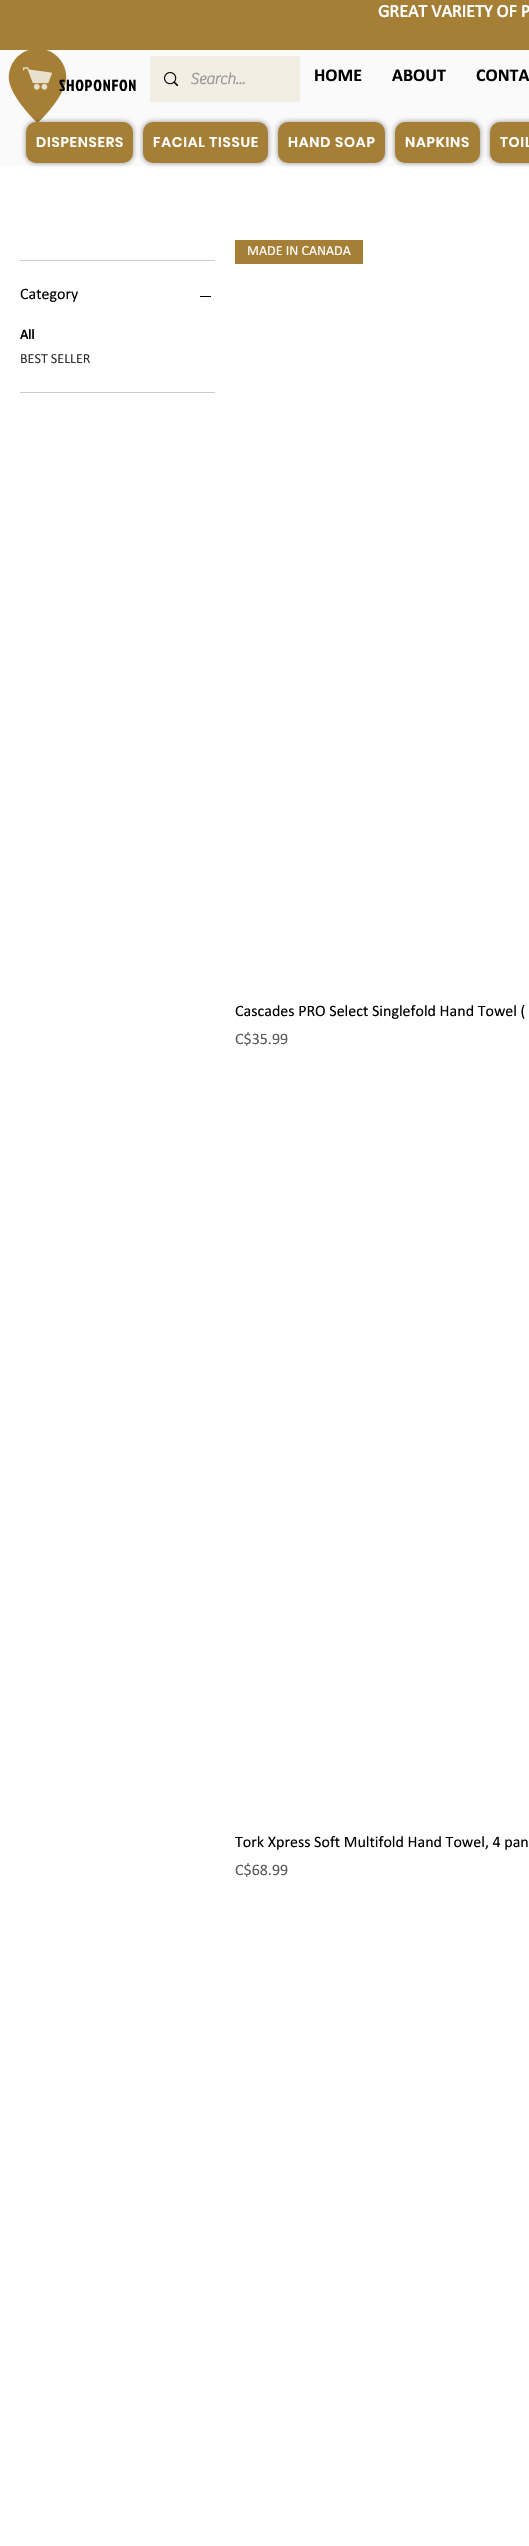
void draw(SkCanvas* c) {
SkPaint p;
p.setAntiAlias(true);
auto F=[&](const char* family, int weight, float size, bool italic = false){SkFontStyle style(weight, SkFontStyle::kNormal_Width,italic ? SkFontStyle::kItalic_Slant : SkFontStyle::kUpright_Slant);SkFont result(fontMgr->matchFamilyStyle(family, style), size);result.setSubpixel(true);return result;};
auto T=[&](const char* s, float x, float y, const SkFont& font){c->drawString(s, x, y, font, p);};
auto L=[&](const char* s, float x, float y, const SkFont& font, const SkPaint& ink, float letter, float word){std::vector<SkGlyphID> glyphs(font.countText(s, strlen(s), SkTextEncoding::kUTF8));std::vector<float> xs(glyphs.size());font.textToGlyphs(s, strlen(s), SkTextEncoding::kUTF8, glyphs);font.getXPos(glyphs, xs, x);float extra = 0;for (size_t i = 0; i < glyphs.size(); i++) {xs[i] += extra;extra += letter + word * (glyphs[i] == font.unicharToGlyph(' '));}c->drawTextBlob(SkTextBlob::MakeFromPosHGlyphs(glyphs, xs, y, font), 0, 0, ink);};
auto R=[&](float x, float y, float w, float h){c->drawRect(SkRect::MakeXYWH(x, y, w, h), p);};
auto Q=[&](float x, float y, float w, float h, float radius){c->drawRoundRect(SkRect::MakeXYWH(x, y, w, h), radius, radius, p);};
auto I=[&](const char* path, float x, float y, float w, float h){auto image = SkImages::DeferredFromEncodedData(SkData::MakeFromFileName(path));c->drawImageRect(image, SkRect::MakeXYWH(x, y, w, h), SkSamplingOptions());};
c->clear(0xffffffff);
p.setColor(0xffa67f36);
R(0,0,529,50);
auto f1 = F("Calibri",700,18);
p.setColor(0xffffffff);
T("GREAT VARIETY OF P",378,17,f1);
p.setColor(0xfffafafa);
R(0,50,529,116);
I("1.png",8,50,59,72);
I("2.png",23,67,29,23);
auto f2 = F("Jockey One",400,16);
p.setColor(0xff000000);
L("SHOPONFON",59,91,f2,p,.75,0);
p.setColor(0xfff2eee4);
R(150,56,150,46);
I("3.png",164,72,14,14);
auto f3 = F("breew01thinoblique",700,16);
p.setColor(0xff999999);
T("Search...",190,84,f3);
auto f4 = F("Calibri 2",700,18);
p.setColor(0xff000000);
T("HOME",314,81,f4);
T("ABOUT",392,81,f4);
T("CONTA",476,81,f4);
p.setColor(0x4d000000);
p.setMaskFilter(SkMaskFilter::MakeBlur(kNormal_SkBlurStyle, 2));
c->drawRoundRect(SkRect::MakeXYWH(25,121,109,43),11,11,p);
p.setMaskFilter(nullptr);
p.setColor(0xffa67f36);
Q(26,122,107,41,10);
auto f5 = F("Poppins",600,14);
p.setColor(0xffffffff);
L("DISPENSERS",36,147,f5,p,.75,0);
p.setColor(0x4d000000);
p.setMaskFilter(SkMaskFilter::MakeBlur(kNormal_SkBlurStyle, 2));
c->drawRoundRect(SkRect::MakeXYWH(142,121,127,43),11,11,p);
p.setMaskFilter(nullptr);
p.setColor(0xffa67f36);
Q(143,122,125,41,10);
p.setColor(0xffffffff);
L("FACIAL TISSUE",153,147,f5,p,.75,0);
p.setColor(0x4d000000);
p.setMaskFilter(SkMaskFilter::MakeBlur(kNormal_SkBlurStyle, 2));
c->drawRoundRect(SkRect::MakeXYWH(277,121,109,43),11,11,p);
p.setMaskFilter(nullptr);
p.setColor(0xffa67f36);
Q(278,122,107,41,10);
p.setColor(0xffffffff);
L("HAND SOAP",288,147,f5,p,.75,0);
p.setColor(0x4d000000);
p.setMaskFilter(SkMaskFilter::MakeBlur(kNormal_SkBlurStyle, 2));
c->drawRoundRect(SkRect::MakeXYWH(394,121,87,43),11,11,p);
p.setMaskFilter(nullptr);
p.setColor(0xffa67f36);
Q(395,122,85,41,10);
p.setColor(0xffffffff);
L("NAPKINS",405,147,f5,p,.75,0);
p.setColor(0x4d000000);
p.setMaskFilter(SkMaskFilter::MakeBlur(kNormal_SkBlurStyle, 2));
c->drawRoundRect(SkRect::MakeXYWH(489,121,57,43),11,11,p);
p.setMaskFilter(nullptr);
p.setColor(0xffa67f36);
Q(490,122,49,41,10);
p.setColor(0xffffffff);
L("TOIL",500,147,f5,p,.75,0);
p.setColor(0xffcccccc);
R(20,260,195,1);
R(20,392,195,1);
auto f6 = F("Calibri",400,16);
p.setColor(0xff000000);
T("Category",20,299,f6);
R(200,296,11,1);
auto f7 = F("Calibri",700,14);
T("All",20,339,f7);
auto f8 = F("Calibri",400,14);
p.setColor(0xff333333);
T("BEST SELLER",20,363,f8);
p.setColor(0xffa67f36);
R(235,240,128,24);
p.setColor(0xffffffff);
T("MADE IN CANADA",247,255,f8);
p.setColor(0xff000000);
T("Cascades PRO Select Singlefold Hand Towel (",235,1016,f6);
p.setColor(0xff595959);
T("C$35.99",235,1044,f6);
p.setColor(0xff000000);
T("Tork Xpress Soft Multifold Hand Towel, 4 pan",235,1847,f6);
p.setColor(0xff595959);
T("C$68.99",235,1875,f6);
}
